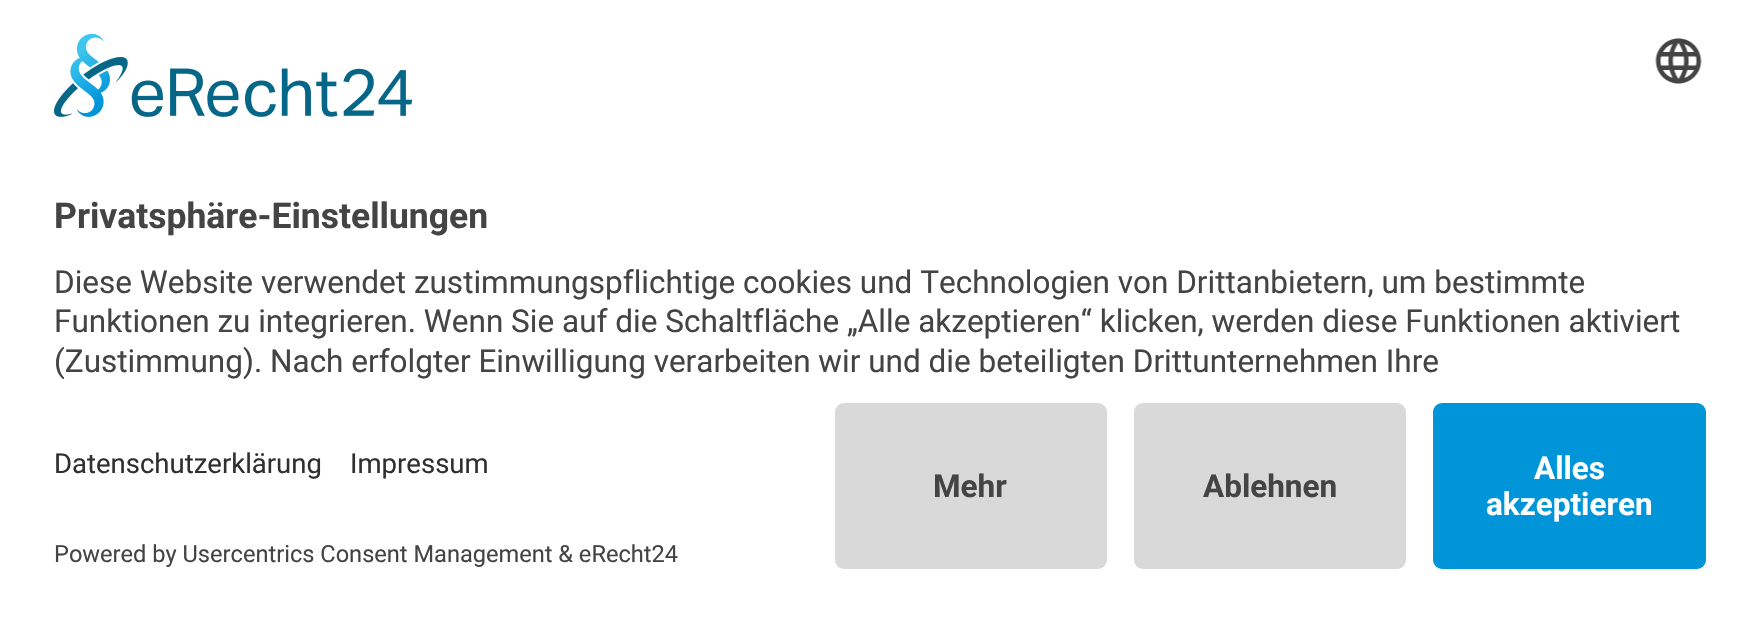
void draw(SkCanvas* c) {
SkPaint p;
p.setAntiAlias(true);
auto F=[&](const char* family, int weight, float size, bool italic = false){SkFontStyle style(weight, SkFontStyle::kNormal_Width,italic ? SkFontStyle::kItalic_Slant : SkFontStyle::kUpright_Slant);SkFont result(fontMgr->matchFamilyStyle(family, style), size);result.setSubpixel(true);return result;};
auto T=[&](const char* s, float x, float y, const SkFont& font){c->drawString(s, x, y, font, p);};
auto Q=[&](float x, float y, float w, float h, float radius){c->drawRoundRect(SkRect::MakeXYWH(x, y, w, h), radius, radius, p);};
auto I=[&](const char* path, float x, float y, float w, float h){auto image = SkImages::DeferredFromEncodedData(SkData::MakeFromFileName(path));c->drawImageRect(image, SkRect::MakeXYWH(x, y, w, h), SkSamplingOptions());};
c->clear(0xffffffff);
I("1.png",54,34,359,83);
I("2.png",1655,38,47,46);
auto f1 = F("Roboto",700,35.5);
p.setColor(0xff444444);
T("Privatsphäre-Einstellungen",54,228,f1);
auto f2 = F("Roboto",400,31.5);
T("Diese Website verwendet zustimmungspflichtige cookies und Technologien von Drittanbietern, um bestimmte",54,293,f2);
T("Funktionen zu integrieren. Wenn Sie auf die Schaltfläche „Alle akzeptieren“ klicken, werden diese Funktionen aktiviert",54,332,f2);
T("(Zustimmung). Nach erfolgter Einwilligung verarbeiten wir und die beteiligten Drittunternehmen Ihre",54,372,f2);
auto f3 = F("Roboto",400,27.5);
p.setColor(0xff303030);
T("Datenschutzerklärung",54,473,f3);
T("Impressum",350,473,f3);
auto f4 = F("Roboto",400,23.6);
p.setColor(0xff444444);
T("Powered by Usercentrics Consent Management & eRecht24",54,562,f4);
p.setColor(0xffd9d9d9);
Q(835,403,272,166,9);
auto f5 = F("Roboto",700,31.5);
p.setColor(0xff444444);
T("Mehr",933,497,f5);
p.setColor(0xffd9d9d9);
Q(1134,403,272,166,9);
p.setColor(0xff444444);
T("Ablehnen",1203,497,f5);
p.setColor(0xff0094d8);
Q(1433,403,273,166,9);
p.setColor(0xffffffff);
T("Alles",1534,479,f5);
T("akzeptieren",1486,515,f5);
}
